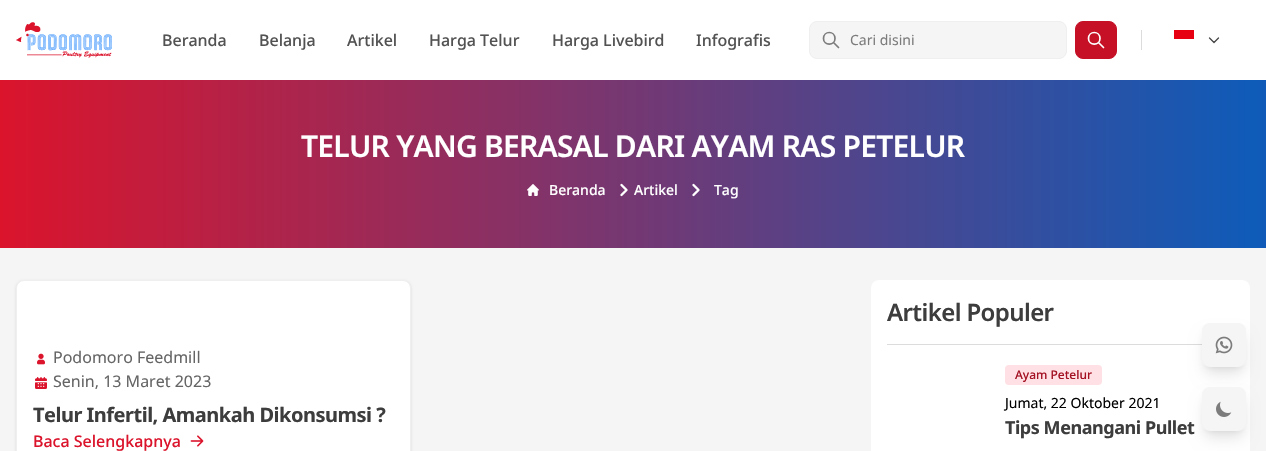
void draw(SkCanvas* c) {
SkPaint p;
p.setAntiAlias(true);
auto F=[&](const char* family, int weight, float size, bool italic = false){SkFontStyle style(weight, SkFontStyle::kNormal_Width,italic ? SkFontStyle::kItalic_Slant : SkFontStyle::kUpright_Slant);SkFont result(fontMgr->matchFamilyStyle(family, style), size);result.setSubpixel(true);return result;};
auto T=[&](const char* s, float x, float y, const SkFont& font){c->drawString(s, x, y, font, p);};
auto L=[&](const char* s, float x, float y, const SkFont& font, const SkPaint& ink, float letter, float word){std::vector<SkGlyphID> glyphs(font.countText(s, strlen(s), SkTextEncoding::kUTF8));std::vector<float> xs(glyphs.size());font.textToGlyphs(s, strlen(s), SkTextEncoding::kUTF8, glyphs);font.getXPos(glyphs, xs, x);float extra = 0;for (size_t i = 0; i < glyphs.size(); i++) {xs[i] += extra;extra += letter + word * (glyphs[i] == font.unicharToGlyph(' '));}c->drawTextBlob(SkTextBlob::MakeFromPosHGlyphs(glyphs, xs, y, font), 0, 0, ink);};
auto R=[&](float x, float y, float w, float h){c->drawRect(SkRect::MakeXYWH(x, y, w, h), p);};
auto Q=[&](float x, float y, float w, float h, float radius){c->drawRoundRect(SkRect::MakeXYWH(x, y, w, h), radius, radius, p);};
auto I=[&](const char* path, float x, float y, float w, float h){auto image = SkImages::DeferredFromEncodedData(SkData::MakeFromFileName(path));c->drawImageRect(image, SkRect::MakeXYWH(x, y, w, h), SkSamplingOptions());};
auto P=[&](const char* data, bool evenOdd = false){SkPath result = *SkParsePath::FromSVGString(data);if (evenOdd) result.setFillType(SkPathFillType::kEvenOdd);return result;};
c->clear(0xffffffff);
I("1.png",16,22,96,36);
auto f1 = F("Noto Sans",500,16);
p.setColor(0xff525252);
T("Beranda",162,46,f1);
T("Belanja",259,46,f1);
T("Artikel",347,46,f1);
T("Harga Telur",429,46,f1);
T("Harga Livebird",552,46,f1);
T("Infografis",696,46,f1);
p.setColor(0xfff5f5f5);
c->drawRoundRect(SkRect::MakeXYWH(809.5,21.5,257,37),7.5,7.5,p);
p.setStroke(true);
p.setStrokeWidth(1);
p.setColor(0xffefefef);
c->drawRoundRect(SkRect::MakeXYWH(809.5,21.5,257,37),7.5,7.5,p);
p.setStrokeWidth(1.7);
p.setStrokeCap(SkPaint::kRound_Cap);
p.setStrokeJoin(SkPaint::kRound_Join);
p.setColor(0xff7c7c7c);
c->drawPath(P("M838.5 47.5l-5-5m1.5-4c0 7.5-11.5 7.5-11.5 0c0-8 11.5-8 11.5 0z"),p);
auto f2 = F("Noto Sans",400,14);
p.setStroke(false);
T("Cari disini",850,45,f2);
p.setColor(0xffc51026);
c->drawRoundRect(SkRect::MakeXYWH(1075.5,21.5,41,37),7.5,7.5,p);
p.setStroke(true);
p.setStrokeWidth(1);
p.setStrokeCap(SkPaint::kButt_Cap);
p.setStrokeJoin(SkPaint::kMiter_Join);
c->drawRoundRect(SkRect::MakeXYWH(1075.5,21.5,41,37),7.5,7.5,p);
p.setStrokeWidth(1.7);
p.setStrokeCap(SkPaint::kRound_Cap);
p.setStrokeJoin(SkPaint::kRound_Join);
p.setColor(0xffffffff);
c->drawPath(P("M1103.5 47.5l-5-5m1.5-4c0 7.5-11.5 7.5-11.5 0c0-8 11.5-8 11.5 0z"),p);
p.setStroke(false);
p.setColor(0xffdcdcdc);
R(1141,30,1,20);
p.setColor(0xffe70011);
R(1174,30,20,9);
p.setStroke(true);
p.setStrokeWidth(1.3);
p.setColor(0xff464646);
c->drawPath(P("M1218.5 38l-4.5 4.5l-4.5-4.5"),p);
p.setStroke(false);
{
const SkColor colors[] = {0xffdb142c,0xff0f5bb8,0xffdb142c,0xff0f5bb8};
const float stops[] = {0,.33,.67,1};
const SkPoint ends[] = {{0,164}, {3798,164}};
p.setShader(SkGradientShader::MakeLinear(ends, colors, stops, 4, SkTileMode::kClamp));
p.setAlpha(255);
}
R(0,80,1266,168);
auto f3 = F("Noto Sans",600,30);
p.setShader(nullptr);
p.setColor(0xffffffff);
L("TELUR YANG BERASAL DARI AYAM RAS PETELUR",301,157,f3,p,-.75,0);
I("2.png",527,184,12,12);
auto f4 = F("Noto Sans",500,14);
T("Beranda",549,195,f4);
p.setStroke(true);
p.setStrokeWidth(2.4);
c->drawPath(P("M621.5 195l5-5l-5-5"),p);
p.setStroke(false);
T("Artikel",634,195,f4);
p.setStroke(true);
c->drawPath(P("M693.5 195l5-5l-5-5"),p);
p.setStroke(false);
T("Tag",714,195,f4);
p.setColor(0xfff5f5f5);
R(0,248,1266,203);
p.setColor(0x1a000000);
p.setMaskFilter(SkMaskFilter::MakeBlur(kNormal_SkBlurStyle, 1.5));
c->drawRoundRect(SkRect::MakeXYWH(16,281,395,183),8,8,p);
p.setMaskFilter(nullptr);
p.setColor(0xffffffff);
c->drawRoundRect(SkRect::MakeXYWH(16.5,280.5,394,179),7.5,7.5,p);
p.setStroke(true);
p.setStrokeWidth(1);
p.setStrokeCap(SkPaint::kButt_Cap);
p.setStrokeJoin(SkPaint::kMiter_Join);
p.setColor(0xffefefef);
c->drawRoundRect(SkRect::MakeXYWH(16.5,280.5,394,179),7.5,7.5,p);
I("3.png",37,353,8,12);
auto f5 = F("Noto Sans",400,16);
p.setStroke(false);
p.setColor(0xff656565);
T("Podomoro Feedmill",53,363,f5);
I("4.png",35,377,12,12);
T("Senin, 13 Maret 2023",53,387,f5);
auto f6 = F("Noto Sans",700,20);
p.setColor(0xff3d3d3d);
L("Telur Infertil, Amankah Dikonsumsi ?",33,422,f6,p,-.5,0);
p.setColor(0xffdb142c);
T("Baca Selengkapnya",33,447,f1);
I("5.png",190,435,14,12);
p.setColor(0xffffffff);
Q(871,280,379,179,8);
p.setColor(0xffdcdcdc);
R(887,344,315,1);
auto f7 = F("Noto Sans",600,24);
p.setColor(0xff3d3d3d);
L("Artikel Populer",887,321,f7,p,-.6,0);
p.setColor(0xffffe0e4);
Q(1005,365,97,20,4);
auto f8 = F("Noto Sans",500,12);
p.setColor(0xffa31123);
T("Ayam Petelur",1015,379,f8);
p.setColor(0xff000000);
T("Jumat, 22 Oktober 2021",1005,408,f2);
auto f9 = F("Noto Sans",700,18);
p.setColor(0xff3d3d3d);
L("Tips Menangani Pullet",1005,434,f9,p,-.45,0);
p.setColor(0x1a000000);
p.setMaskFilter(SkMaskFilter::MakeBlur(kNormal_SkBlurStyle, 3));
c->drawRoundRect(SkRect::MakeXYWH(1206,331,36,36),4,4,p);
p.setMaskFilter(nullptr);
p.setMaskFilter(SkMaskFilter::MakeBlur(kNormal_SkBlurStyle, 7.5));
c->drawRoundRect(SkRect::MakeXYWH(1205,336,38,38),5,5,p);
p.setMaskFilter(nullptr);
p.setColor(0xfff5f5f5);
Q(1202,323,44,44,8);
I("6.png",1215,336,18,18);
p.setColor(0x1a000000);
p.setMaskFilter(SkMaskFilter::MakeBlur(kNormal_SkBlurStyle, 3));
c->drawRoundRect(SkRect::MakeXYWH(1206,395,36,36),4,4,p);
p.setMaskFilter(nullptr);
p.setMaskFilter(SkMaskFilter::MakeBlur(kNormal_SkBlurStyle, 7.5));
c->drawRoundRect(SkRect::MakeXYWH(1205,400,38,38),5,5,p);
p.setMaskFilter(nullptr);
p.setColor(0xfff5f5f5);
Q(1202,387,44,44,8);
I("7.png",1216,401,16,16);
}
